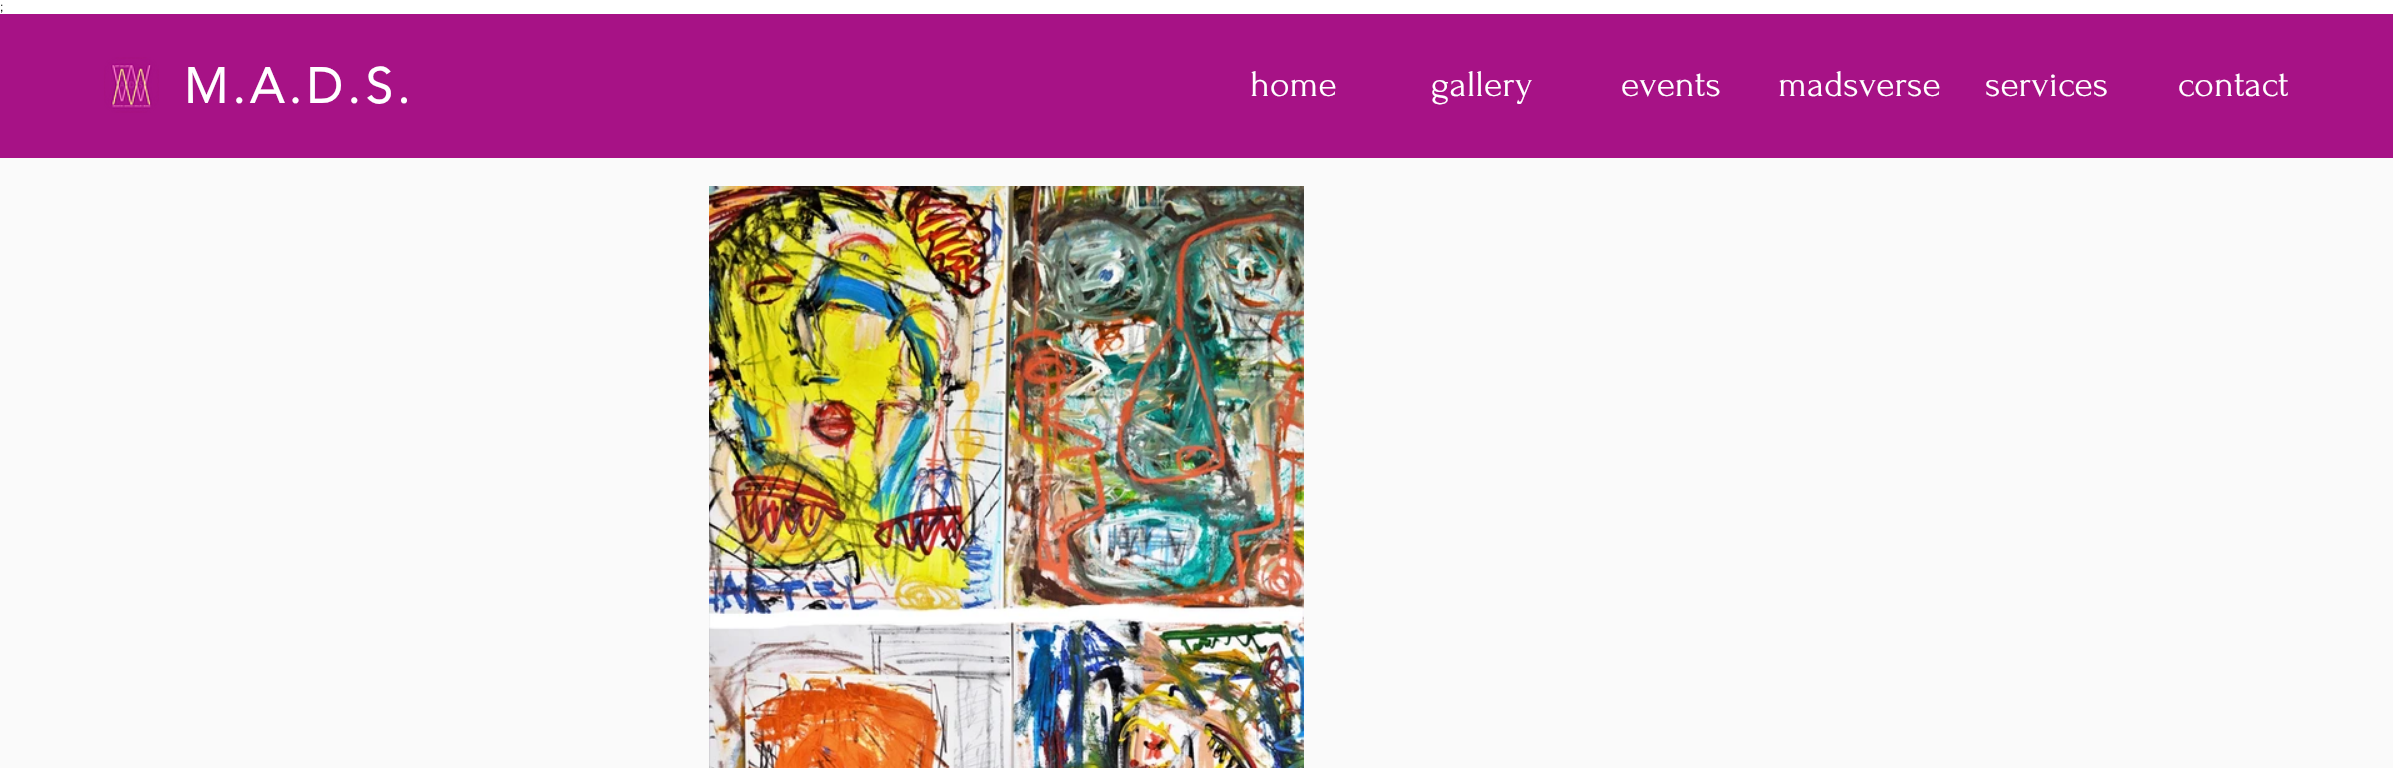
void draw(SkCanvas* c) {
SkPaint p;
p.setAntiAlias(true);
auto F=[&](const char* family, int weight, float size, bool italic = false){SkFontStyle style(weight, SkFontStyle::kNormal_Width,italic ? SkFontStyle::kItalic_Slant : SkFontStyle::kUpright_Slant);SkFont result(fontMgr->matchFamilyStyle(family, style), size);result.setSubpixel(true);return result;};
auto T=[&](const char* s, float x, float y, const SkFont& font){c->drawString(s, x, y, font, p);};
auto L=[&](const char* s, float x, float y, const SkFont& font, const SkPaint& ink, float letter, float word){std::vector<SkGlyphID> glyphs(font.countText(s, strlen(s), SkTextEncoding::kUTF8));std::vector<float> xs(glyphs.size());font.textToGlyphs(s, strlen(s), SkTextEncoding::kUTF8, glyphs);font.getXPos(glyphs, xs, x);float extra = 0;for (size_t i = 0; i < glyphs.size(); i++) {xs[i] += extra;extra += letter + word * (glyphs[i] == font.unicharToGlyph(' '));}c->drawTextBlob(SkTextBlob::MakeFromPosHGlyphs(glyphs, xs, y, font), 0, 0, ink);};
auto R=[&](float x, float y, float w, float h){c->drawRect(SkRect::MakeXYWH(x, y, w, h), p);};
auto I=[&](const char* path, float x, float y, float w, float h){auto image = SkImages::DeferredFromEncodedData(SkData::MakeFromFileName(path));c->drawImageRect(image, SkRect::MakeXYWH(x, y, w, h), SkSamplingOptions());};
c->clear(0xffffffff);
auto f1 = F("Liberation Sans",400,12);
p.setColor(0xff000000);
T(";",0,11,f1);
p.setColor(0xffa71286);
R(0,14,2393,144);
I("1.png",104,57,55,56);
auto f2 = F("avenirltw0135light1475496",700,48.75);
p.setColor(0xffffffff);
L("M.A.D.S.",184,103,f2,p,5,0);
auto f3 = F("Forum",400,37.5);
T("home",1250,96,f3);
T("gallery",1431,96,f3);
T("events",1621,96,f3);
T("madsverse",1778,96,f3);
T("services",1985,96,f3);
T("contact",2178,96,f3);
p.setColor(0xfffafafa);
R(0,158,2393,610);
I("2.png",709,186,595,582);
}
